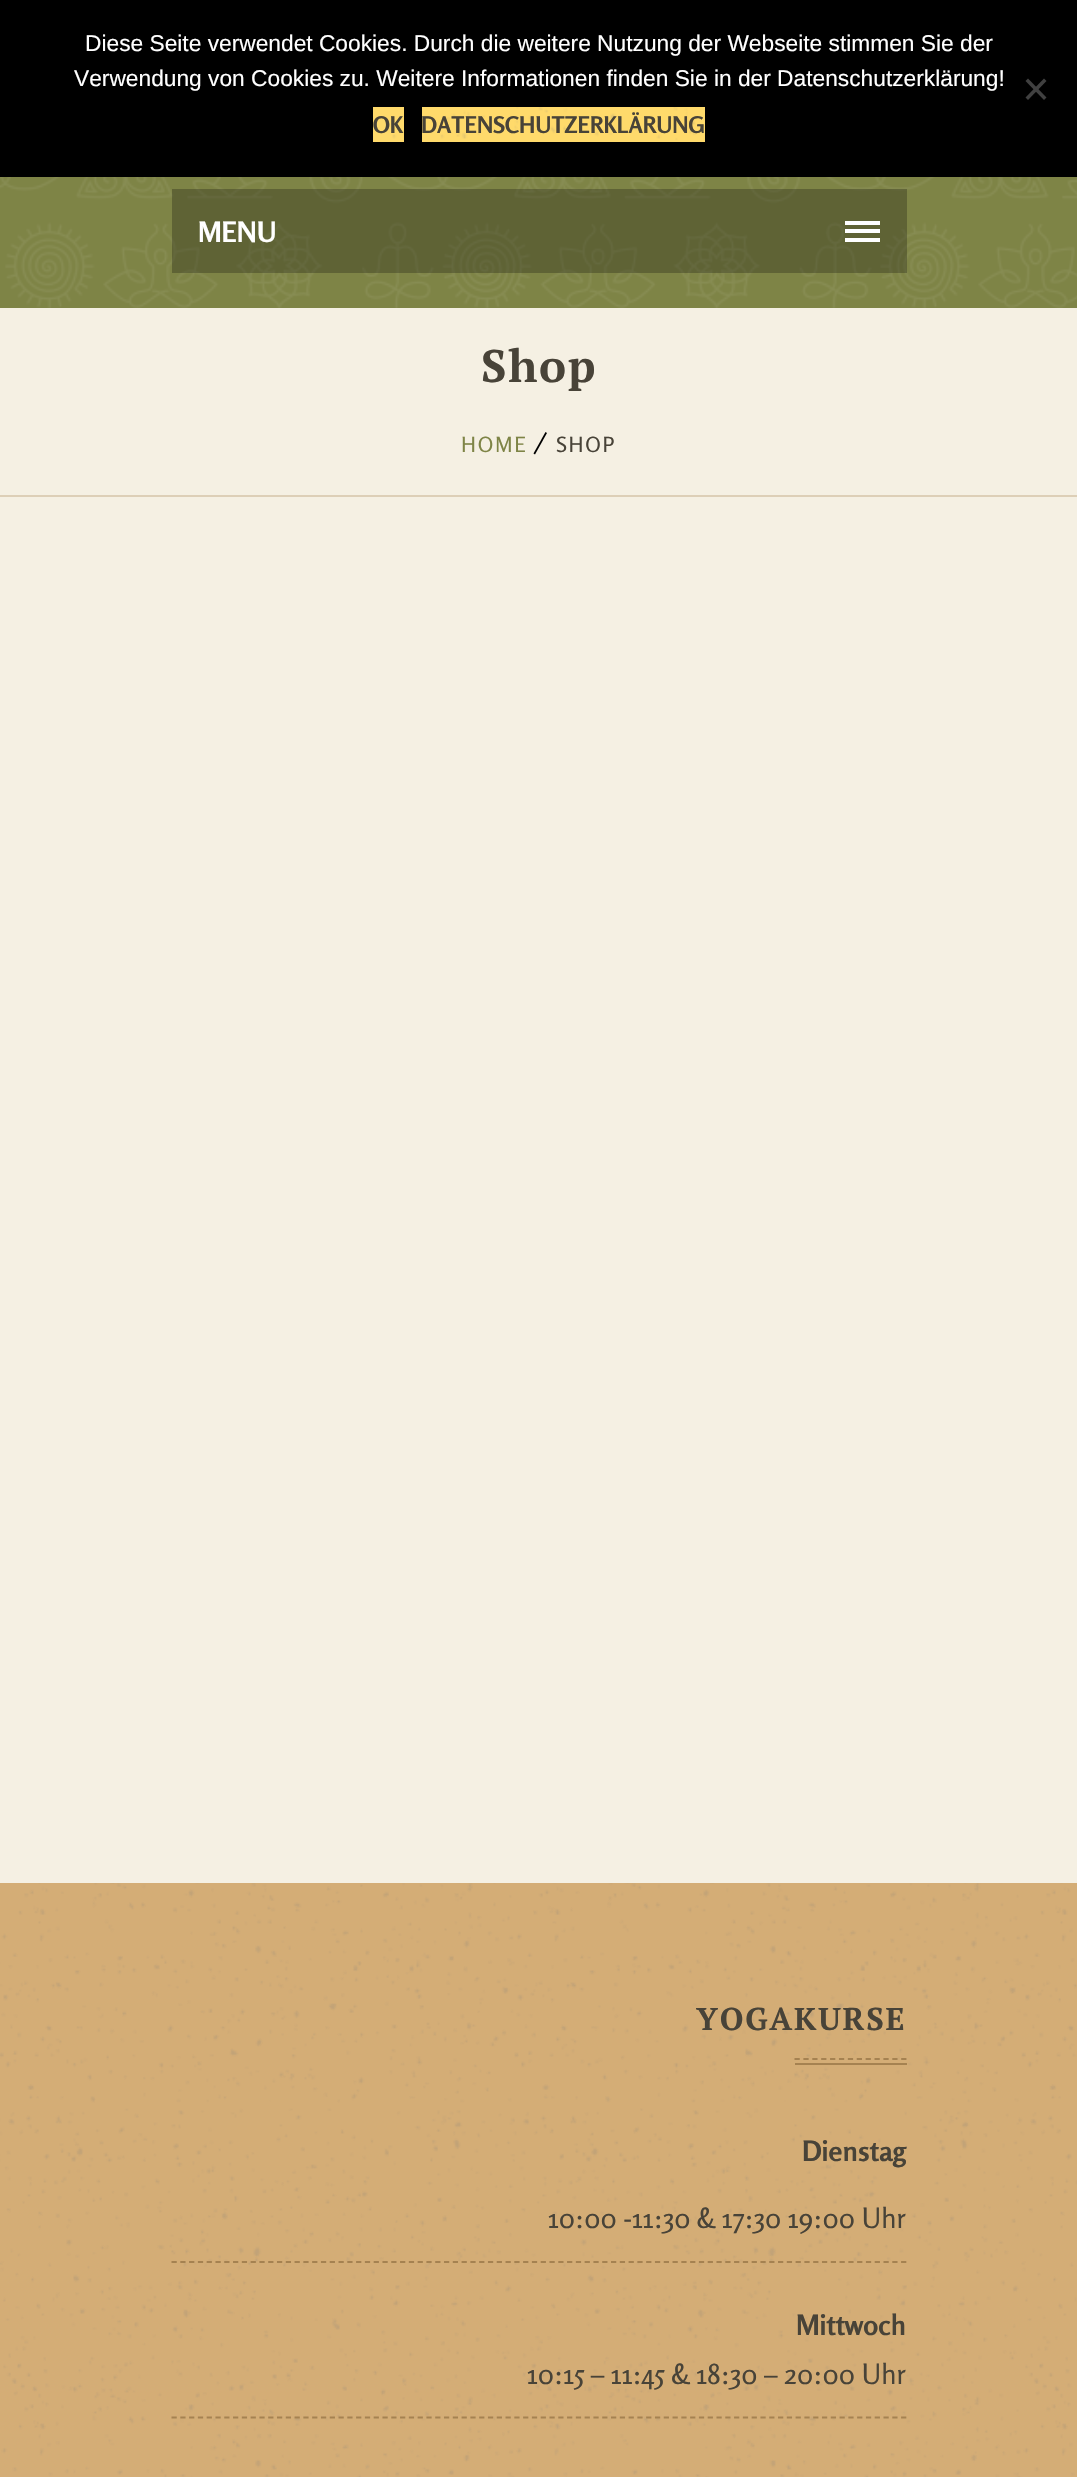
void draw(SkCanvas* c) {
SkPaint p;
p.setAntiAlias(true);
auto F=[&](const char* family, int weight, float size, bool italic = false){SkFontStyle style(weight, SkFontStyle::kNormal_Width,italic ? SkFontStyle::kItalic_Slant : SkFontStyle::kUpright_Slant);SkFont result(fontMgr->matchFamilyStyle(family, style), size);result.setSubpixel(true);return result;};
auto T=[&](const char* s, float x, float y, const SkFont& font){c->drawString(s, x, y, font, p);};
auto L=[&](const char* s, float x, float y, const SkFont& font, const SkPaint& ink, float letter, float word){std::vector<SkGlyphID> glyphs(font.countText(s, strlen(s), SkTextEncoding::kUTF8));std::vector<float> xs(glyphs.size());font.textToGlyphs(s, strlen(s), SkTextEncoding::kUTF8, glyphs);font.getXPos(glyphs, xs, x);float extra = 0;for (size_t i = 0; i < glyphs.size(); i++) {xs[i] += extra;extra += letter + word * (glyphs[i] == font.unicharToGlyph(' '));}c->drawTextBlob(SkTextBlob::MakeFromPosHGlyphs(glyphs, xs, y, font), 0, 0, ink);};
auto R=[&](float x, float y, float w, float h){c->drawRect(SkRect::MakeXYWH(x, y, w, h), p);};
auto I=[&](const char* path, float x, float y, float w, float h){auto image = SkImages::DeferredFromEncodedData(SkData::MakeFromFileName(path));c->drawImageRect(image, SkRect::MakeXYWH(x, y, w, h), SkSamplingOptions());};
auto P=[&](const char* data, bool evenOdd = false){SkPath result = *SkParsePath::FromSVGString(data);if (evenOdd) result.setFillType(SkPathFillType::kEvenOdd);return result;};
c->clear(0xffd4ad76);
p.setColor(0xff000000);
R(0,0,1077,177);
auto f1 = F("Liberation Sans",400,22.75);
p.setColor(0xffffffff);
T("Diese Seite verwendet Cookies. Durch die weitere Nutzung der Webseite stimmen Sie der",85,51,f1);
T("Verwendung von Cookies zu. Weitere Informationen finden Sie in der Datenschutzerklärung!",74,86,f1);
p.setColor(0xff404040);
c->drawPath(P("M1044 78.5l2.5 2.5l-18.5 19l-2.5-2.5z"),p);
c->drawPath(P("M1025.5 81l2.5-2.5l18.5 19l-2.5 2.5z"),p);
p.setColor(0xffffda6b);
R(373,107,31,35);
I("1.png",392,117,10,22);
auto f2 = F("Rosario",700,22.75);
p.setColor(0xff484338);
T("OK",373,133,f2);
p.setColor(0xffffda6b);
R(422,107,283,35);
I("2.png",440,107,256,33);
p.setColor(0xff484338);
T("DATENSCHUTZERKLÄRUNG",421,133,f2);
p.setColor(0xff7e8446);
R(0,177,1077,131);
I("3.png",0,177,1077,131);
p.setColor(0x40000000);
R(172,189,735,84);
auto f3 = F("Rosario",700,28);
p.setColor(0xffffffff);
T("MENU",198,242,f3);
R(845,229,35,4);
R(845,221,35,4);
R(845,238,35,4);
p.setColor(0xfff5f0e3);
R(0,308,1077,1575);
p.setColor(0xffddcfb7);
R(0,495,1077,2);
auto f4 = F("PT Serif",700,45.5);
p.setColor(0xff484338);
L("Shop",481,382,f4,p,1.75,0);
auto f5 = F("Rosario",400,21);
p.setColor(0xff7e8446);
L("HOME",461,452,f5,p,1.75,0);
p.setColor(0xff000000);
c->drawPath(P("M545.5 432l1.5 1l-12 21.5l-1.5-1z"),p);
p.setColor(0xff484338);
L("SHOP",556,452,f5,p,1.75,0);
I("4.png",0,1883,1077,594);
auto f6 = F("PT Serif",700,31.5);
L("YOGAKURSE",696,2030,f6,p,1.75,0);
p.setStroke(true);
p.setStrokeWidth(1.8);
p.setColor(0xffa58251);
p.setPathEffect(SkDashPathEffect::Make({{5.25f,3.64f}}, 0));
c->drawPath(P("M794.5 2059h112"),p);
p.setPathEffect(nullptr);
p.setStroke(false);
R(795,2063,112,2);
p.setColor(0xff484338);
T("Dienstag",802,2161,f3);
auto f7 = F("Rosario",400,28);
T("10:00 -11:30 & 17:30 19:00 Uhr",548,2228,f7);
p.setStroke(true);
p.setColor(0xffa58251);
p.setPathEffect(SkDashPathEffect::Make({{5.25f,3.54f}}, 0));
c->drawPath(P("M171.5 2262h735"),p);
p.setPathEffect(nullptr);
p.setStroke(false);
p.setColor(0xff484338);
T("Mittwoch",796,2335,f3);
T("10:15 – 11:45 & 18:30 – 20:00 Uhr",527,2384,f7);
p.setStroke(true);
p.setColor(0xffa58251);
p.setPathEffect(SkDashPathEffect::Make({{5.25f,3.54f}}, 0));
c->drawPath(P("M171.5 2417.5h735"),p);
p.setPathEffect(nullptr);
}
